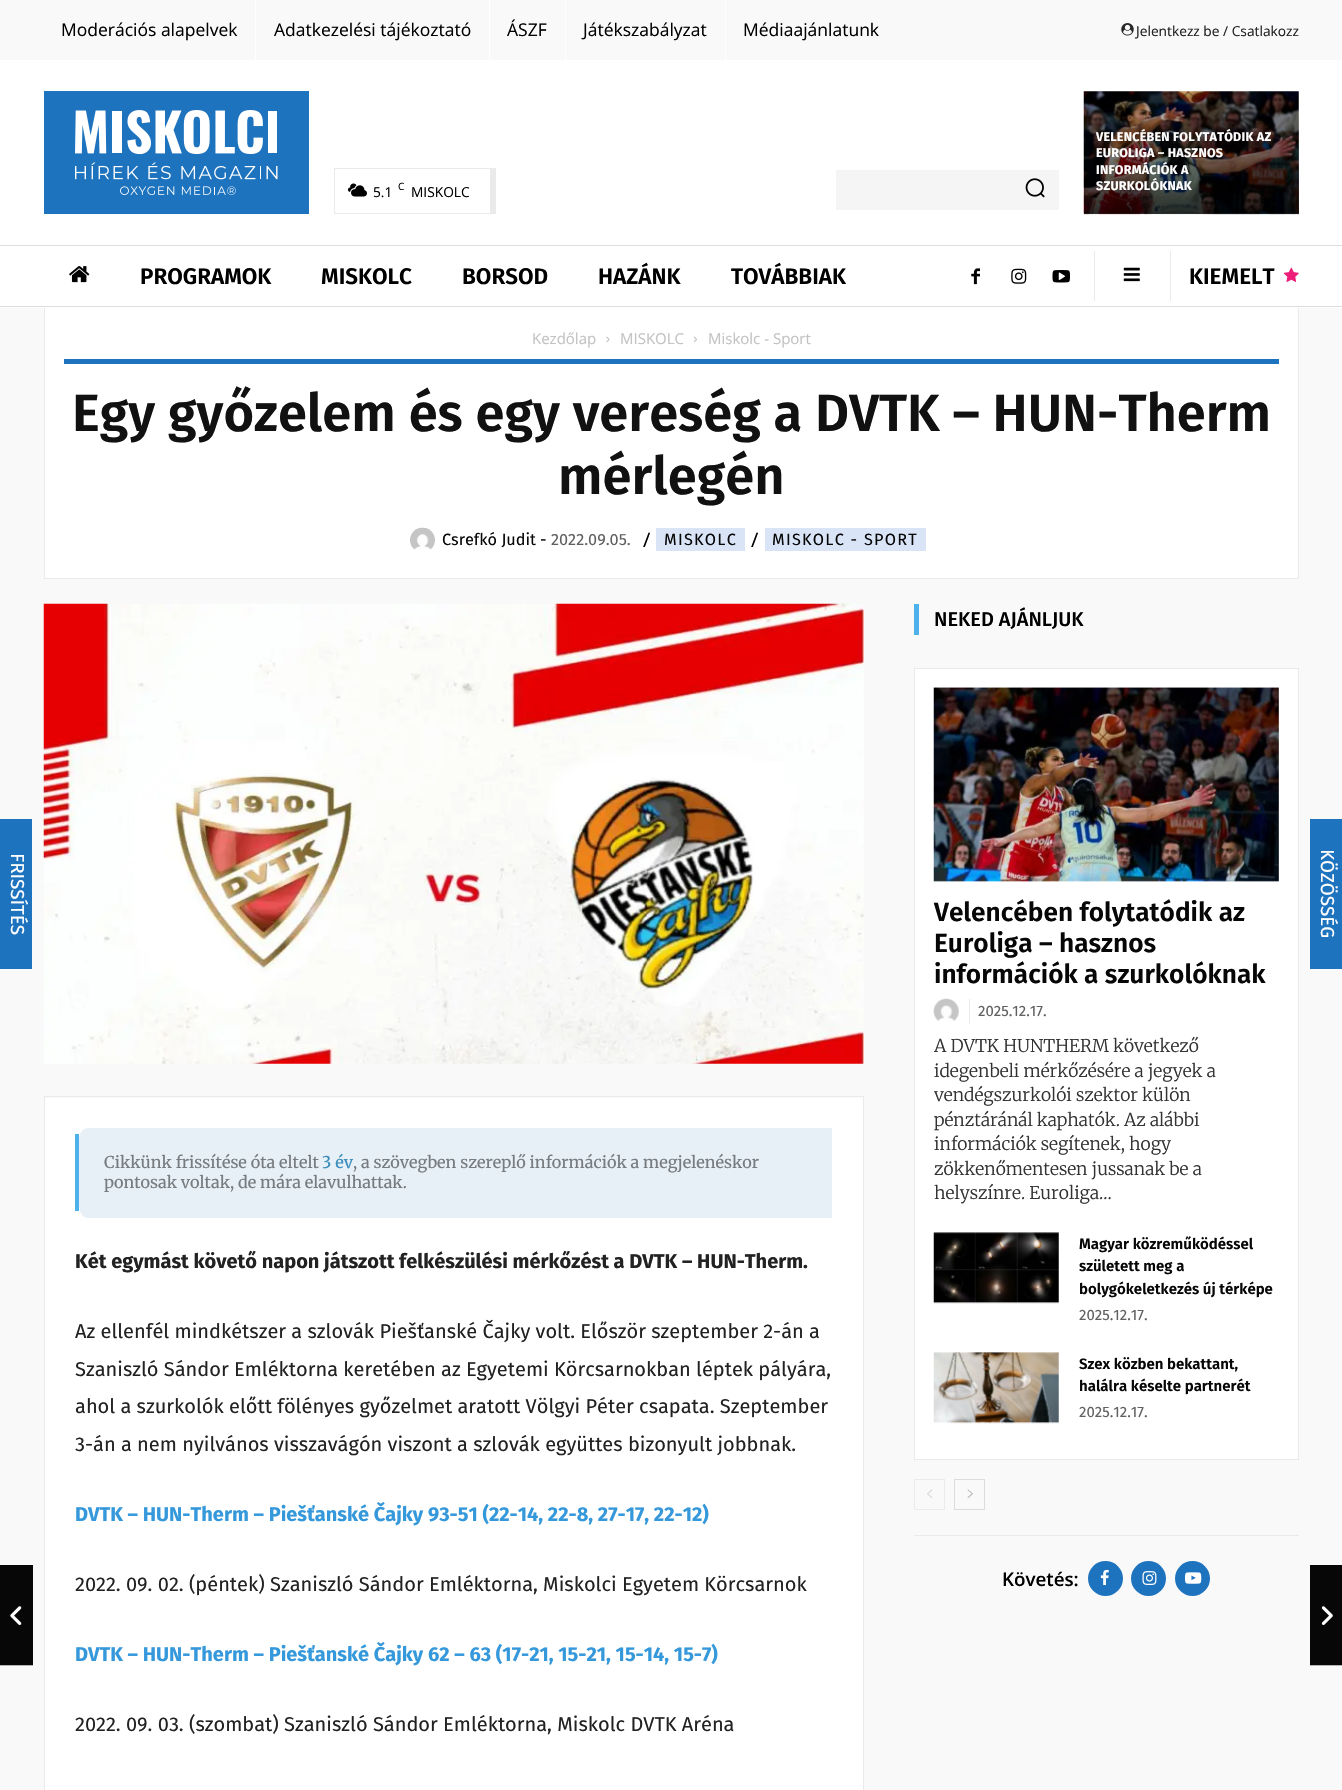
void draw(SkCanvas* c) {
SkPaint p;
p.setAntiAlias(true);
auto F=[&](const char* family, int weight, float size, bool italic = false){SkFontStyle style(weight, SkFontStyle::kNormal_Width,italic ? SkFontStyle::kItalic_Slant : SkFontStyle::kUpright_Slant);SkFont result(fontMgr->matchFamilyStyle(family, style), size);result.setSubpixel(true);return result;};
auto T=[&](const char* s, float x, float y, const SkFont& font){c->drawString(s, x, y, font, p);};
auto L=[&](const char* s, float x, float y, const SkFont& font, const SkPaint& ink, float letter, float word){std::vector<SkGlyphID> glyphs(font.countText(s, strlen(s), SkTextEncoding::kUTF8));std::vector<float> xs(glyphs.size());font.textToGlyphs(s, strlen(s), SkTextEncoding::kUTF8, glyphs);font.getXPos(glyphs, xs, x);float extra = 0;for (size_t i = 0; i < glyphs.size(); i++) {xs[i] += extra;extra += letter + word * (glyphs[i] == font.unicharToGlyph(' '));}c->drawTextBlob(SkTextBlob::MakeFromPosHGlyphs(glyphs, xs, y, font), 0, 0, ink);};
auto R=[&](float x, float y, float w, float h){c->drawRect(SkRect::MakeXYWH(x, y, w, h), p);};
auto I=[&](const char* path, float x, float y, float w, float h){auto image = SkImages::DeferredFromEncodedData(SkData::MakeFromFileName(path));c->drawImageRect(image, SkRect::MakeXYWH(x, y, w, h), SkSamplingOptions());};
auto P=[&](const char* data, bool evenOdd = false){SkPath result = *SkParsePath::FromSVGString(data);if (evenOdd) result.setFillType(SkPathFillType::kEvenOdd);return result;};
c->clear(0xfff9f9f9);
p.setColor(0xff1e73be);
R(0,819,32,150);
auto f1 = F("Fira Sans",400,18.75);
p.setColor(0xffffffff);
c->save();
c->rotate(90,11,853);
T("FRISSÍTÉS",11,853,f1);
c->restore();
auto f2 = F("Open Sans",400,17.5);
p.setColor(0xff000000);
T("Moderációs alapelvek",61,36,f2);
p.setColor(0xffffffff);
R(255,0,1,60);
p.setColor(0xff000000);
T("Adatkezelési tájékoztató",274,36,f2);
p.setColor(0xffffffff);
R(489,0,1,60);
p.setColor(0xff000000);
T("ÁSZF",507,36,f2);
p.setColor(0xffffffff);
R(565,0,1,60);
p.setColor(0xff000000);
T("Játékszabályzat",583,36,f2);
p.setColor(0xffffffff);
R(725,0,1,60);
p.setColor(0xff000000);
T("Médiaajánlatunk",743,36,f2);
I("1.png",1121,23,13,13);
auto f3 = F("Open Sans",400,13.75);
p.setColor(0xff222222);
T("Jelentkezz be / Csatlakozz",1136,36,f3);
p.setColor(0xffffffff);
R(0,60,1342,248);
p.setColor(0xff1e73be);
R(44,91,265,123);
I("2.png",75,110,203,85);
p.setColor(0xffeaeaea);
R(334,168,162,1);
R(490,168,6,46);
R(334,213,162,1);
R(334,168,1,46);
I("3.png",347,183,20,14);
p.setColor(0xff000000);
T("5.1",373,197,f3);
auto f4 = F("Open Sans",400,10);
T("C",398,190,f4);
T("MISKOLC",411,197,f3);
p.setColor(0xfff5f5f5);
R(836,170,223,40);
I("4.png",1025,178,20,20);
I("5.png",1083,91,216,124);
{
const SkColor colors[] = {0xcc000000,0x00000000};
const float stops[] = {0,1};
const SkPoint ends[] = {{1191,214}, {1191,91}};
p.setShader(SkGradientShader::MakeLinear(ends, colors, stops, 2, SkTileMode::kClamp));
p.setAlpha(255);
}
R(1084,94,215,120);
auto f5 = F("Fira Sans",700,12.5);
p.setShader(nullptr);
p.setColor(0xffffffff);
L("VELENCÉBEN FOLYTATÓDIK AZ",1096,141,f5,p,.25,0);
L("EUROLIGA – HASZNOS",1096,157,f5,p,.25,0);
L("INFORMÁCIÓK A",1096,174,f5,p,.25,0);
L("SZURKOLÓKNAK",1096,190,f5,p,.25,0);
p.setColor(0xffdddddd);
R(0,245,1342,1);
R(0,306,1342,1);
I("6.png",69,266,21,17);
auto f6 = F("Fira Sans",600,22.5);
p.setColor(0xff000000);
T("PROGRAMOK",140,284,f6);
T("MISKOLC",321,284,f6);
T("BORSOD",462,284,f6);
T("HAZÁNK",598,284,f6);
T("TOVÁBBIAK",731,284,f6);
p.setColor(0xffeaeaea);
R(1094,251,1,50);
I("7.png",971,268,9,17);
I("8.png",1011,268,16,16);
I("9.png",1052,270,18,13);
R(1170,251,1,50);
I("10.png",1123,267,17,15);
p.setColor(0xff000000);
T("KIEMELT",1189,284,f6);
I("11.png",1283,267,16,15);
p.setColor(0xffd4d4d4);
c->drawPath(P("M-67 1665v1h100v-100h-1v99z"),p);
p.setColor(0x26000000);
c->drawPath(P("M0 1665v1h33v-100h-1v99z"),p);
p.setColor(0xff070707);
R(0,1565,33,100);
I("12.png",10,1606,12,19);
p.setColor(0xffffffff);
R(45,308,1253,270);
p.setColor(0xffeaeaea);
R(1298,308,1,271);
R(44,578,1255,1);
R(44,308,1,271);
p.setColor(0xff1e73be);
R(64,359,1215,5);
auto f7 = F("Open Sans",400,15);
p.setColor(0xffc3c3c3);
T("Kezdőlap",532,344,f7);
I("13.png",606,336,4,7);
T("MISKOLC",620,344,f7);
I("14.png",693,336,4,7);
T("Miskolc - Sport",708,344,f7);
auto f8 = F("Fira Sans",600,52.5);
p.setColor(0xff111111);
T("Egy győzelem és egy vereség a DVTK – HUN-Therm",72,431,f8);
T("mérlegén",558,494,f8);
I("15.png",410,527,25,23);
auto f9 = F("Fira Sans",400,16.25);
p.setColor(0xff070707);
T("Csrefkó Judit",442,545,f9);
p.setColor(0xff000000);
T("-",540,545,f9);
p.setColor(0xff606060);
T("2022.09.05.",551,545,f9);
auto f10 = F("Open Sans",400,20);
p.setColor(0xff000000);
T("/",643,547,f10);
p.setColor(0xffd9e4f7);
R(656,528,89,23);
p.setColor(0xff070707);
L("MISKOLC",664,545,f9,p,1.25,0);
p.setColor(0xff000000);
T("/",751,547,f10);
p.setColor(0xffd9e4f7);
R(765,528,161,23);
p.setColor(0xff070707);
L("MISKOLC - SPORT",772,545,f9,p,1.25,0);
I("16.png",43,603,821,461);
p.setColor(0xffffffff);
R(45,1098,818,692);
p.setColor(0xffeaeaea);
R(44,1096,820,1);
R(863,1096,1,694);
R(44,1096,1,694);
p.setColor(0xffe7f0f6);
c->drawPath(P("M88 1128h744v90h-744c-5 0-9-6-9-13v-65c0-7 4-12 9-12z"),p);
p.setColor(0xff4db2ec);
R(75,1134,4,77);
auto f11 = F("Merriweather",400,16.25);
p.setColor(0xff777c80);
T("Cikkünk frissítése óta eltelt",104,1168,f11);
auto f12 = F("Merriweather",500,16.25);
p.setColor(0xff3e8ebd);
T("3 év",322,1168,f12);
p.setColor(0xff777c80);
T(", a szövegben szereplő információk a megjelenéskor",353,1168,f11);
T("pontosak voltak, de mára elavulhattak.",104,1188,f11);
auto f13 = F("Fira Sans",700,20);
p.setColor(0xff222222);
T("Két egymást követő napon játszott felkészülési mérkőzést a DVTK – HUN-Therm.",75,1268,f13);
auto f14 = F("Fira Sans",400,20);
T("Az ellenfél mindkétszer a szlovák Piešťanské Čajky volt. Először szeptember 2-án a",75,1338,f14);
T("Szaniszló Sándor Emléktorna keretében az Egyetemi Körcsarnokban léptek pályára,",75,1376,f14);
T("ahol a szurkolók előtt fölényes győzelmet aratott Völgyi Péter csapata. Szeptember",75,1413,f14);
T("3-án a nem nyilvános visszavágón viszont a szlovák együttes bizonyult jobbnak.",75,1451,f14);
p.setColor(0xff3498db);
T("DVTK – HUN-Therm – Piešťanské Čajky 93-51 (22-14, 22-8, 27-17, 22-12)",75,1521,f13);
p.setColor(0xff222222);
T("2022. 09. 02. (péntek) Szaniszló Sándor Emléktorna, Miskolci Egyetem Körcsarnok",75,1591,f14);
p.setColor(0xff3498db);
T("DVTK – HUN-Therm – Piešťanské Čajky 62 – 63 (17-21, 15-21, 15-14, 15-7)",75,1661,f13);
p.setColor(0xff222222);
T("2022. 09. 03. (szombat) Szaniszló Sándor Emléktorna, Miskolc DVTK Aréna",75,1731,f14);
p.setColor(0xff4db2ec);
R(914,604,5,31);
auto f15 = F("Fira Sans",500,20);
p.setColor(0xff000000);
T("NEKED AJÁNLJUK",934,626,f15);
p.setColor(0xffffffff);
c->drawRect(SkRect::MakeXYWH(914.5,668.5,384,791),p);
p.setStroke(true);
p.setStrokeWidth(1);
p.setColor(0xffeaeaea);
c->drawRect(SkRect::MakeXYWH(914.5,668.5,384,791),p);
I("17.png",933,687,346,195);
auto f16 = F("Fira Sans",600,26.25);
p.setStroke(false);
p.setColor(0xff070707);
T("Velencében folytatódik az",934,921,f16);
T("Euroliga – hasznos",934,952,f16);
T("információk a szurkolóknak",934,983,f16);
I("18.png",933,998,26,23);
p.setColor(0xffeaeaea);
R(969,999,1,25);
auto f17 = F("Fira Sans",400,15);
p.setColor(0xff606060);
T("2025.12.17.",978,1016,f17);
auto f18 = F("Merriweather",300,17.5);
p.setColor(0xff333333);
T("A DVTK HUNTHERM következő",934,1052,f18);
T("idegenbeli mérkőzésére a jegyek a",934,1077,f18);
T("vendégszurkolói szektor külön",934,1101,f18);
T("pénztáránál kaphatók. Az alábbi",934,1126,f18);
T("információk segítenek, hogy",934,1150,f18);
T("zökkenőmentesen jussanak be a",934,1175,f18);
T("helyszínre. Euroliga...",934,1199,f18);
I("19.png",933,1232,126,72);
auto f19 = F("Fira Sans",600,15);
p.setColor(0xff070707);
T("Magyar közreműködéssel",1079,1249,f19);
T("született meg a",1079,1271,f19);
T("bolygókeletkezés új térképe",1079,1294,f19);
p.setColor(0xff606060);
T("2025.12.17.",1079,1320,f17);
I("20.png",933,1352,126,72);
p.setColor(0xff070707);
T("Szex közben bekattant,",1079,1369,f19);
T("halálra késelte partnerét",1079,1391,f19);
p.setColor(0xff606060);
T("2025.12.17.",1079,1417,f17);
p.setStroke(true);
p.setColor(0xffebebeb);
c->drawRect(SkRect::MakeXYWH(914.5,1479.5,30,30),p);
I("21.png",927,1489,6,9);
p.setColor(0xffdcdcdc);
c->drawRect(SkRect::MakeXYWH(954.5,1479.5,30,30),p);
I("22.png",967,1489,6,9);
p.setStroke(false);
p.setColor(0xffeaeaea);
R(914,1535,385,1);
auto f20 = F("Open Sans",600,18.75);
p.setColor(0xff000000);
T("Követés:",1002,1586,f20);
p.setColor(0xff1e73be);
c->drawCircle(1105.5,1578.5,17.5,p);
I("23.png",1100,1569,9,16);
c->drawCircle(1148.5,1578.5,17.5,p);
I("24.png",1142,1571,15,14);
c->drawCircle(1192.5,1578.5,17.5,p);
I("25.png",1185,1572,17,12);
p.setColor(0xffb4b4b4);
c->drawPath(P("M1310 1665v1h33v-100h-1v99z"),p);
p.setColor(0xff070707);
R(1310,1565,32,100);
I("26.png",1321,1606,12,19);
p.setColor(0xff1e73be);
R(1310,819,32,150);
p.setColor(0xffffffff);
c->save();
c->rotate(90,1321,849);
T("KÖZÖSSÉG",1321,849,f1);
c->restore();
}
